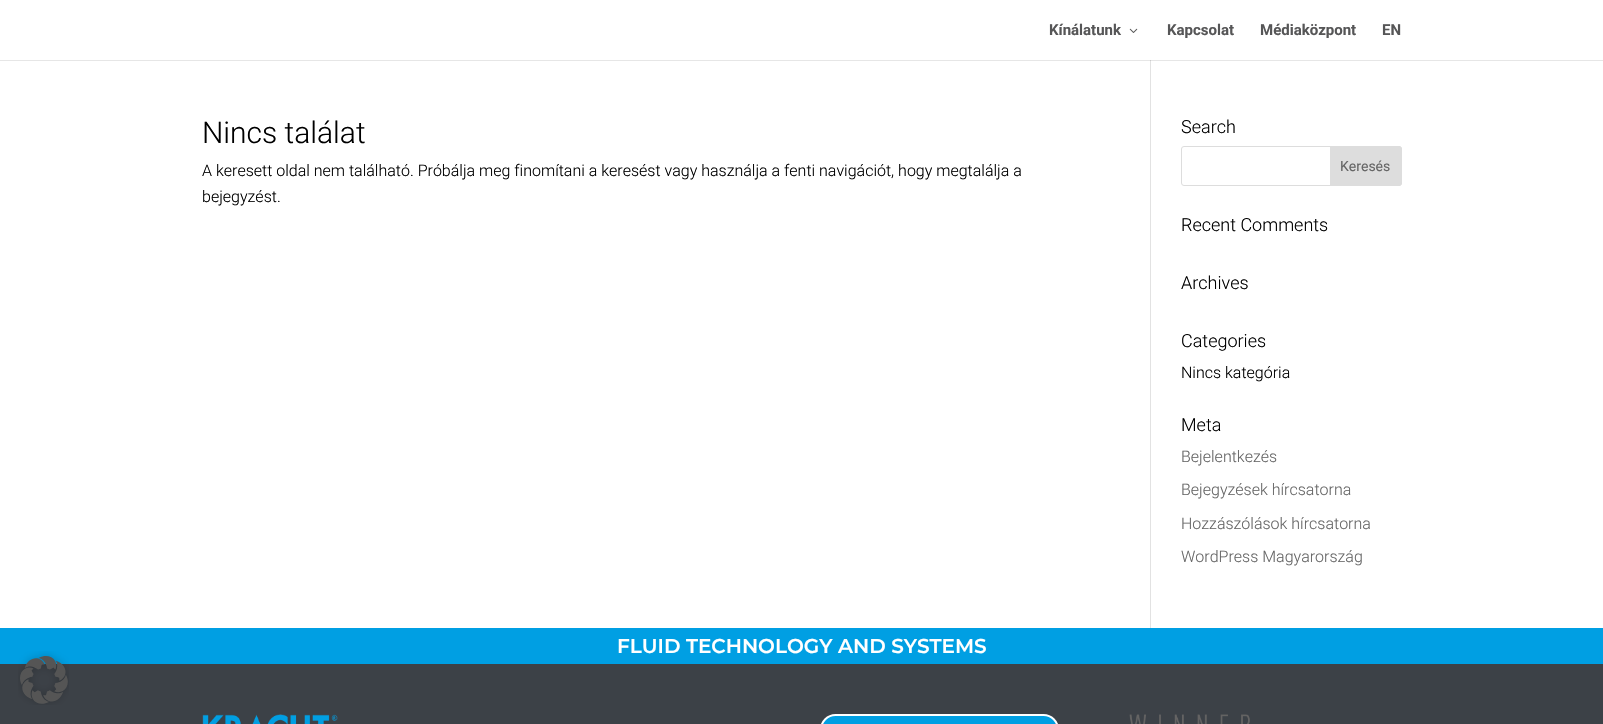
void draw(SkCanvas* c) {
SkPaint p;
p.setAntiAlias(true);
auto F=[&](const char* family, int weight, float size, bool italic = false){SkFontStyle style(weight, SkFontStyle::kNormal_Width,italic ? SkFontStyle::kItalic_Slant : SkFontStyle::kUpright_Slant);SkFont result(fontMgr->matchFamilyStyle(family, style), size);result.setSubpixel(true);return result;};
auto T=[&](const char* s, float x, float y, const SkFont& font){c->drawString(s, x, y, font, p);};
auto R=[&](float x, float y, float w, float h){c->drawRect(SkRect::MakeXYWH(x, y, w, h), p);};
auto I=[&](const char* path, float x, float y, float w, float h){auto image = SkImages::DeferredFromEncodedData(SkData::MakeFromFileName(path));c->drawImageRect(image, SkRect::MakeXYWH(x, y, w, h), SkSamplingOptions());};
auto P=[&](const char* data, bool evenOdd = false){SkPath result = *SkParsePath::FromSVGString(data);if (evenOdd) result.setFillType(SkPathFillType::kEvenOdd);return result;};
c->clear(0xffffffff);
p.setColor(0xffe6e6e6);
R(0,60,1603,1);
auto f1 = F("Roboto",700,15);
p.setColor(0xff565657);
T("Kínálatunk",1049,35,f1);
I("1.png",1129,28,9,5);
T("Kapcsolat",1167,35,f1);
T("Médiaközpont",1260,35,f1);
T("EN",1382,35,f1);
p.setColor(0xffe2e2e2);
R(1150,60,1,568);
p.setColor(0xffcbcbcb);
R(1150,60,1,1);
auto f2 = F("Roboto",300,30);
p.setColor(0xff000000);
T("Nincs találat",202,143,f2);
auto f3 = F("Roboto",300,16);
T("A keresett oldal nem található. Próbálja meg finomítani a keresést vagy használja a fenti navigációt, hogy megtalálja a",202,176,f3);
T("bejegyzést.",202,202,f3);
auto f4 = F("Roboto",300,18);
T("Search",1181,133,f4);
p.setStroke(true);
p.setStrokeWidth(1);
p.setColor(0xffdddddd);
c->drawRoundRect(SkRect::MakeXYWH(1181.5,146.5,220,39),2.5,2.5,p);
p.setStroke(false);
c->drawPath(P("M1330.5 146.5h68.5c1.5 0 2.5 1 2.5 2.5v34c0 1.5-1 2.5-2.5 2.5h-68.5z"),p);
p.setStroke(true);
c->drawPath(P("M1330.5 146.5h68.5c1.5 0 2.5 1 2.5 2.5v34c0 1.5-1 2.5-2.5 2.5h-68.5z"),p);
auto f5 = F("Roboto",400,14);
p.setStroke(false);
p.setColor(0xff666666);
T("Keresés",1340,171,f5);
p.setColor(0xff000000);
T("Recent Comments",1181,231,f4);
T("Archives",1181,289,f4);
T("Categories",1181,347,f4);
T("Nincs kategória",1181,378,f3);
T("Meta",1181,431,f4);
p.setColor(0xff666666);
T("Bejelentkezés",1181,462,f3);
T("Bejegyzések hírcsatorna",1181,495,f3);
T("Hozzászólások hírcsatorna",1181,529,f3);
T("WordPress Magyarország",1181,562,f3);
p.setColor(0xff009fe3);
R(0,628,1603,36);
auto f6 = F("Montserrat",600,20);
p.setColor(0xffffffff);
T("FLUID TECHNOLOGY AND SYSTEMS",617,653,f6);
p.setColor(0xff3c4147);
R(0,664,1603,60);
I("2.png",202,714,136,10);
p.setColor(0xff009fe3);
c->drawRoundRect(SkRect::MakeXYWH(821,715,237,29),18,18,p);
p.setStroke(true);
p.setStrokeWidth(2);
p.setColor(0xffffffff);
c->drawRoundRect(SkRect::MakeXYWH(821,715,237,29),18,18,p);
I("3.png",1129,714,121,10);
I("4.png",18,651,51,54);
}
